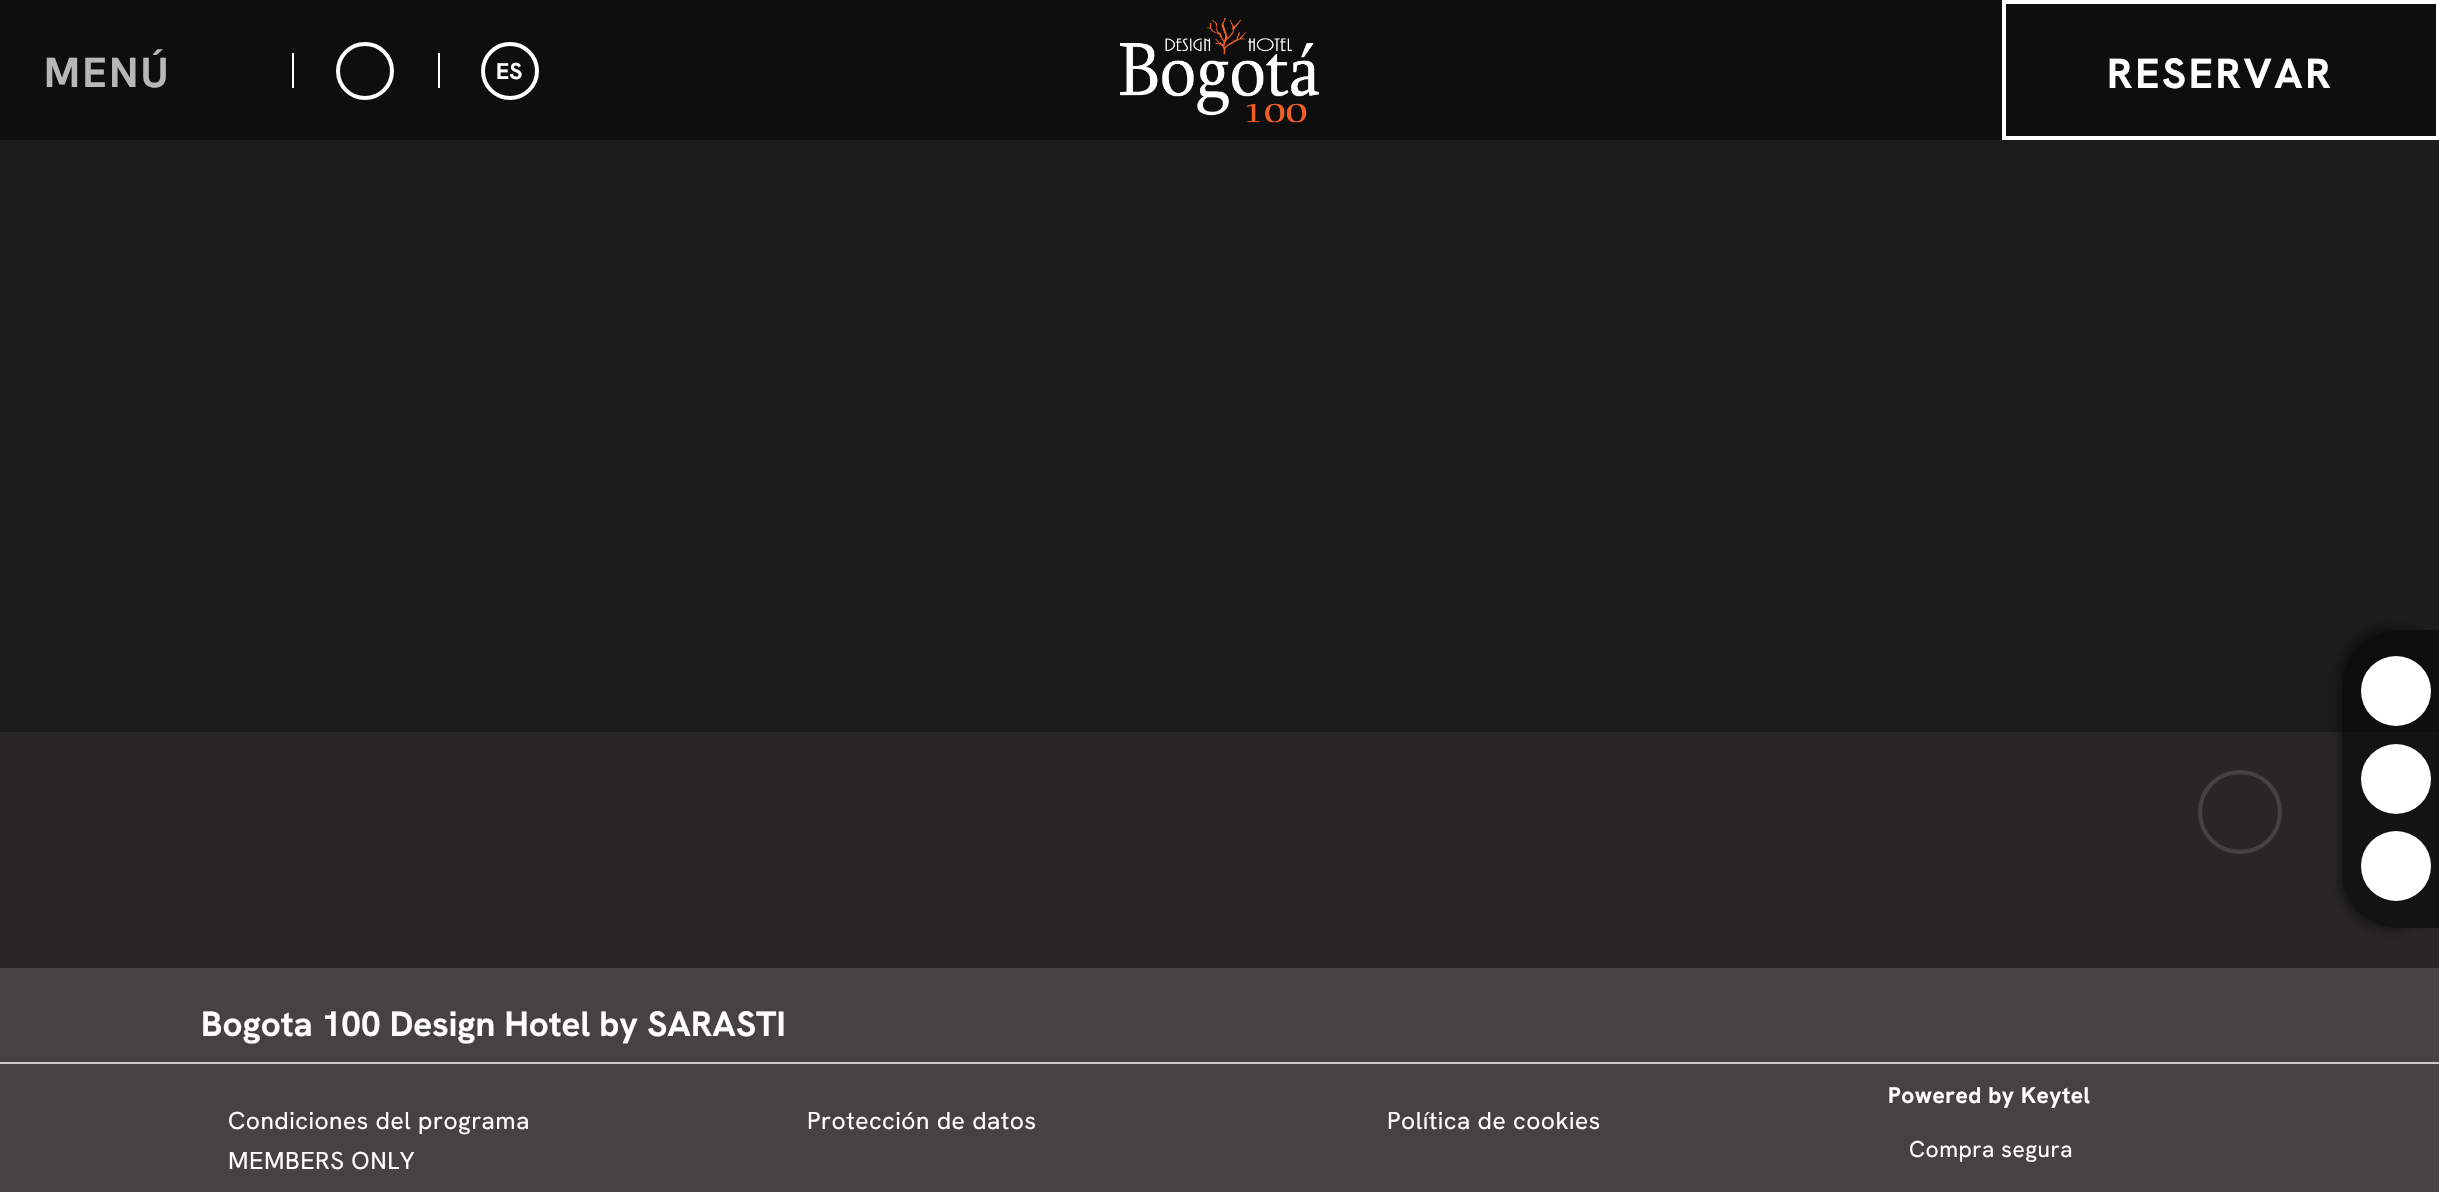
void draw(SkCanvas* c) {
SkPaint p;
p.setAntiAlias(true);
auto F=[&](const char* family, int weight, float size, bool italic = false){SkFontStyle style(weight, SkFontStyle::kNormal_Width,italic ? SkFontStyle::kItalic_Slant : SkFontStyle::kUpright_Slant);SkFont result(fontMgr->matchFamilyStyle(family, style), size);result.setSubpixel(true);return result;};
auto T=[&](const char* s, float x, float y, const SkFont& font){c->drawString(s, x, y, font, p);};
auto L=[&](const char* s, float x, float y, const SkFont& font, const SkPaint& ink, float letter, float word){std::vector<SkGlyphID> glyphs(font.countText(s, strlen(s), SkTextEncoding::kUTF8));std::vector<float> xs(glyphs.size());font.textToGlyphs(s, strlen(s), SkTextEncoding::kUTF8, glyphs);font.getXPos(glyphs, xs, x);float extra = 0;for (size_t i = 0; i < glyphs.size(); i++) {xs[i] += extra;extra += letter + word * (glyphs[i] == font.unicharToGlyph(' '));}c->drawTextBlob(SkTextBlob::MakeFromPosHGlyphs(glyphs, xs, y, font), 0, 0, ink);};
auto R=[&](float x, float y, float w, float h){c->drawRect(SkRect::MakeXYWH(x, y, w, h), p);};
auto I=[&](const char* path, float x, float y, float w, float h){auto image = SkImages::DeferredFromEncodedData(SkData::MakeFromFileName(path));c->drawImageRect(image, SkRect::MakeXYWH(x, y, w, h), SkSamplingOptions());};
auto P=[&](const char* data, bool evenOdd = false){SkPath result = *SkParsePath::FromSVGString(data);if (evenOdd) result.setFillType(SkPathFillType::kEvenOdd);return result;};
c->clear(0xff1c1c1c);
p.setColor(0xff0e0e0e);
R(0,0,2436,140);
auto f1 = F("Hanken Grotesk",700,42);
p.setColor(0xffb7b7b7);
L("MENÚ",44,87,f1,p,2.5,0);
p.setColor(0xffffffff);
R(292,53,2,35);
p.setStroke(true);
p.setStrokeWidth(4);
c->drawCircle(365,71,27,p);
p.setStroke(false);
R(438,53,2,35);
p.setStroke(true);
c->drawCircle(510,71,27,p);
auto f2 = F("Hanken Grotesk",700,22.75);
p.setStroke(false);
T("ES",496,79,f2);
I("1.png",1120,18,199,105);
p.setStroke(true);
c->drawRect(SkRect::MakeXYWH(2004,2,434,136),p);
p.setStroke(false);
L("RESERVAR",2107,88,f1,p,2.5,0);
p.setColor(0xff282626);
R(0,732,2439,236);
c->save();
c->clipPath(P("M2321 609h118v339h-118zm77 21h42v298h-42c-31 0-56-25-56-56v-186c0-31 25-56 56-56z",true),true);
p.setColor(0x80000000);
p.setMaskFilter(SkMaskFilter::MakeBlur(kNormal_SkBlurStyle, 6));
c->drawRoundRect(SkRect::MakeXYWH(2340,628,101,301),58,58,p);
p.setMaskFilter(nullptr);
c->restore();
c->drawPath(P("M2398 630h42v298h-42c-31 0-56-25-56-56v-186c0-31 25-56 56-56z"),p);
p.setColor(0xffffffff);
c->drawCircle(2396,691,35,p);
c->drawCircle(2396,779,35,p);
c->drawCircle(2396,866,35,p);
p.setStroke(true);
p.setColor(0xff474242);
c->drawCircle(2240,812,40,p);
p.setStroke(false);
R(0,968,2439,94);
auto f3 = F("Hanken Grotesk",700,35);
p.setColor(0xffffffff);
T("Bogota 100 Design Hotel by SARASTI",201,1036,f3);
p.setColor(0xff474242);
R(0,1064,2439,128);
p.setColor(0xffcccbcc);
R(0,1062,2439,2);
auto f4 = F("Hanken Grotesk",400,24.5);
p.setColor(0xffffffff);
L("Condiciones del programa",228,1129,f4,p,.5,0);
L("MEMBERS ONLY",228,1169,f4,p,.5,0);
L("Protección de datos",807,1129,f4,p,.5,0);
L("Política de cookies",1387,1129,f4,p,.5,0);
L("Powered by Keytel",1888,1103,f2,p,.5,0);
auto f5 = F("Hanken Grotesk",400,22.75);
L("Compra segura",1909,1157,f5,p,.5,0);
}
